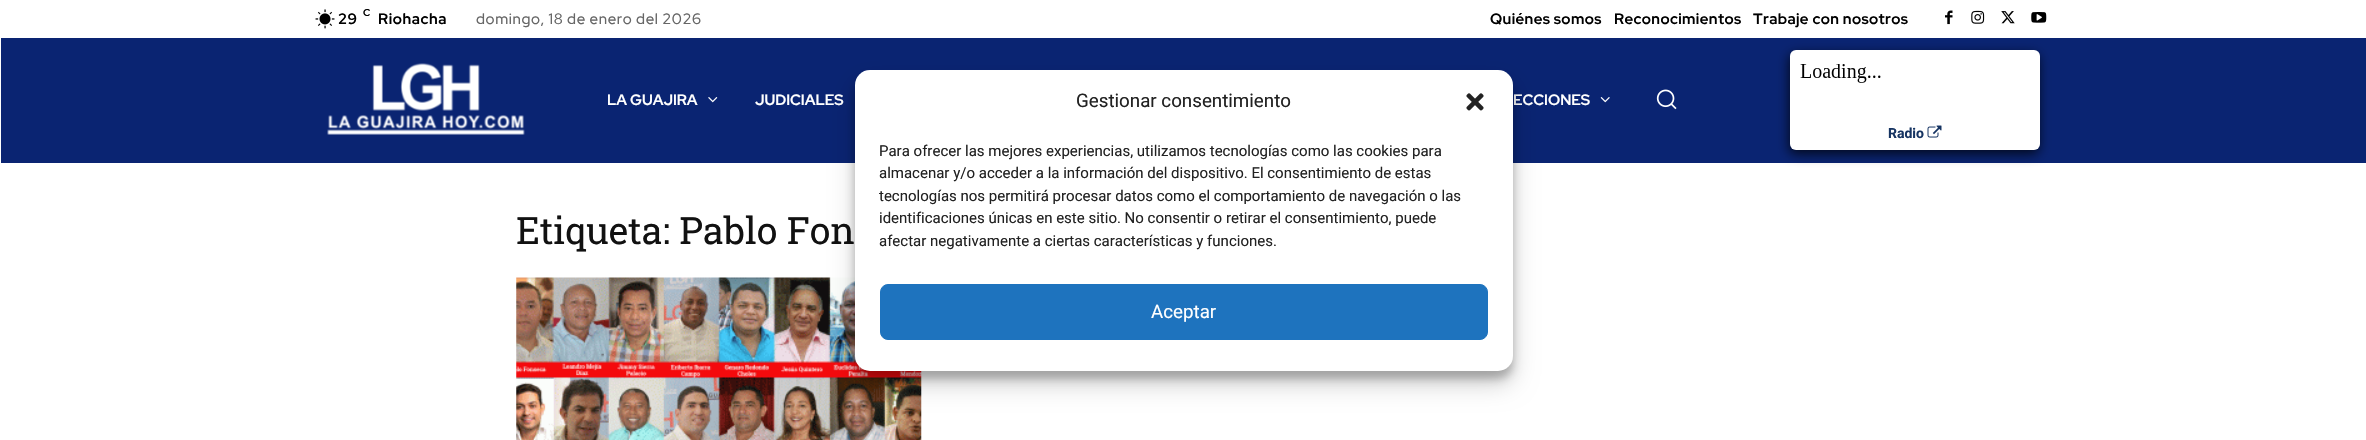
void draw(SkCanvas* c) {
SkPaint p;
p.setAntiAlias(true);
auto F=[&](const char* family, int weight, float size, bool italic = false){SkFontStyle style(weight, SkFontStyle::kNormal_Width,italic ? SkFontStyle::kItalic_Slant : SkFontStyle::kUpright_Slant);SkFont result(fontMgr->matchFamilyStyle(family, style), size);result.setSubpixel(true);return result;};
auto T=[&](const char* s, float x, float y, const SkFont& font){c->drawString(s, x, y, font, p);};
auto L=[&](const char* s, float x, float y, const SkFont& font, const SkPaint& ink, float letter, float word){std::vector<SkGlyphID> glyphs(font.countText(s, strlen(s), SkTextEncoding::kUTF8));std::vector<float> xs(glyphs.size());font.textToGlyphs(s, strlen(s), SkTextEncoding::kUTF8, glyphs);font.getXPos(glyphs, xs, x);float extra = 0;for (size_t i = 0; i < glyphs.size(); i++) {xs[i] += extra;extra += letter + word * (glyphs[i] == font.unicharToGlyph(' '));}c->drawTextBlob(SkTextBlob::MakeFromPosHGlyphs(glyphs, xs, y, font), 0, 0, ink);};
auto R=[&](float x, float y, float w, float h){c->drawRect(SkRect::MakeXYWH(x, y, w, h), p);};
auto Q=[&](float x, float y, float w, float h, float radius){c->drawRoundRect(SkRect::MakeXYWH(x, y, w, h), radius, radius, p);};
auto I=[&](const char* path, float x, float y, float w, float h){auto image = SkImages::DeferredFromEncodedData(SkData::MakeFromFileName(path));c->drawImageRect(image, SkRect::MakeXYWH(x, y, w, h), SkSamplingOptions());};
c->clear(0xffffffff);
I("1.png",315,9,20,20);
auto f1 = F("Red Hat Display",700,15);
p.setColor(0xff000000);
L("29",338,24,f1,p,.6,0);
auto f2 = F("Red Hat Display",700,10);
L("C",363,16,f2,p,.6,0);
L("Riohacha",378,24,f1,p,.6,0);
auto f3 = F("Red Hat Display",500,15);
p.setColor(0xff666666);
L("domingo, 18 de enero del 2026",476,24,f3,p,.6,0);
p.setColor(0xff000000);
L("Quiénes somos",1490,24,f1,p,.4,0);
L("Reconocimientos",1614,24,f1,p,.4,0);
L("Trabaje con nosotros",1753,24,f1,p,.4,0);
I("2.png",1945,10,8,15);
I("3.png",1971,10,14,14);
I("4.png",2001,11,14,13);
I("5.png",2031,12,16,11);
p.setColor(0xff0a2472);
R(1,38,2365,125);
I("6.png",327,63,198,72);
p.setColor(0xffffffff);
T("LA GUAJIRA",607,105,f1);
I("7.png",708,97,10,6);
T("JUDICIALES",755,105,f1);
T("ECCIONES",1513,105,f1);
I("8.png",1600,97,10,6);
I("9.png",1656,89,21,21);
p.setColor(0xbf000000);
p.setMaskFilter(SkMaskFilter::MakeBlur(kNormal_SkBlurStyle, 6));
c->drawRoundRect(SkRect::MakeXYWH(1789,54,250,100),6,6,p);
p.setMaskFilter(nullptr);
p.setColor(0xffffffff);
Q(1790,50,250,100,6);
I("10.png",1800,64,81,19);
auto f4 = F("Roboto",700,14);
p.setColor(0xff163462);
T("Radio",1888,138,f4);
I("11.png",1927,125,15,13);
auto f5 = F("Roboto Slab",400,37.5);
p.setColor(0xff111111);
T("Etiqueta: Pablo Fon",516,244,f5);
I("12.png",516,277,406,163);
p.setColor(0x3b000000);
p.setMaskFilter(SkMaskFilter::MakeBlur(kNormal_SkBlurStyle, 4));
c->drawRoundRect(SkRect::MakeXYWH(855,78,658,301),15,15,p);
p.setMaskFilter(nullptr);
p.setColor(0x30000000);
p.setMaskFilter(SkMaskFilter::MakeBlur(kNormal_SkBlurStyle, 12.5));
c->drawRoundRect(SkRect::MakeXYWH(855,83,658,301),15,15,p);
p.setMaskFilter(nullptr);
p.setColor(0xffffffff);
Q(855,70,658,301,15);
auto f6 = F("Roboto",400,18.75);
p.setColor(0xff222222);
T("Gestionar consentimiento",1076,107,f6);
I("13.png",1466,93,18,18);
auto f7 = F("Roboto",400,15);
T("Para ofrecer las mejores experiencias, utilizamos tecnologías como las cookies para",879,156,f7);
T("almacenar y/o acceder a la información del dispositivo. El consentimiento de estas",879,178,f7);
T("tecnologías nos permitirá procesar datos como el comportamiento de navegación o las",879,201,f7);
T("identificaciones únicas en este sitio. No consentir o retirar el consentimiento, puede",879,223,f7);
T("afectar negativamente a ciertas características y funciones.",879,246,f7);
p.setColor(0xff1e73be);
c->drawRoundRect(SkRect::MakeXYWH(880.5,284.5,607,55),7.5,7.5,p);
p.setStroke(true);
p.setStrokeWidth(1);
c->drawRoundRect(SkRect::MakeXYWH(880.5,284.5,607,55),7.5,7.5,p);
p.setStroke(false);
p.setColor(0xffffffff);
T("Aceptar",1151,318,f6);
}
